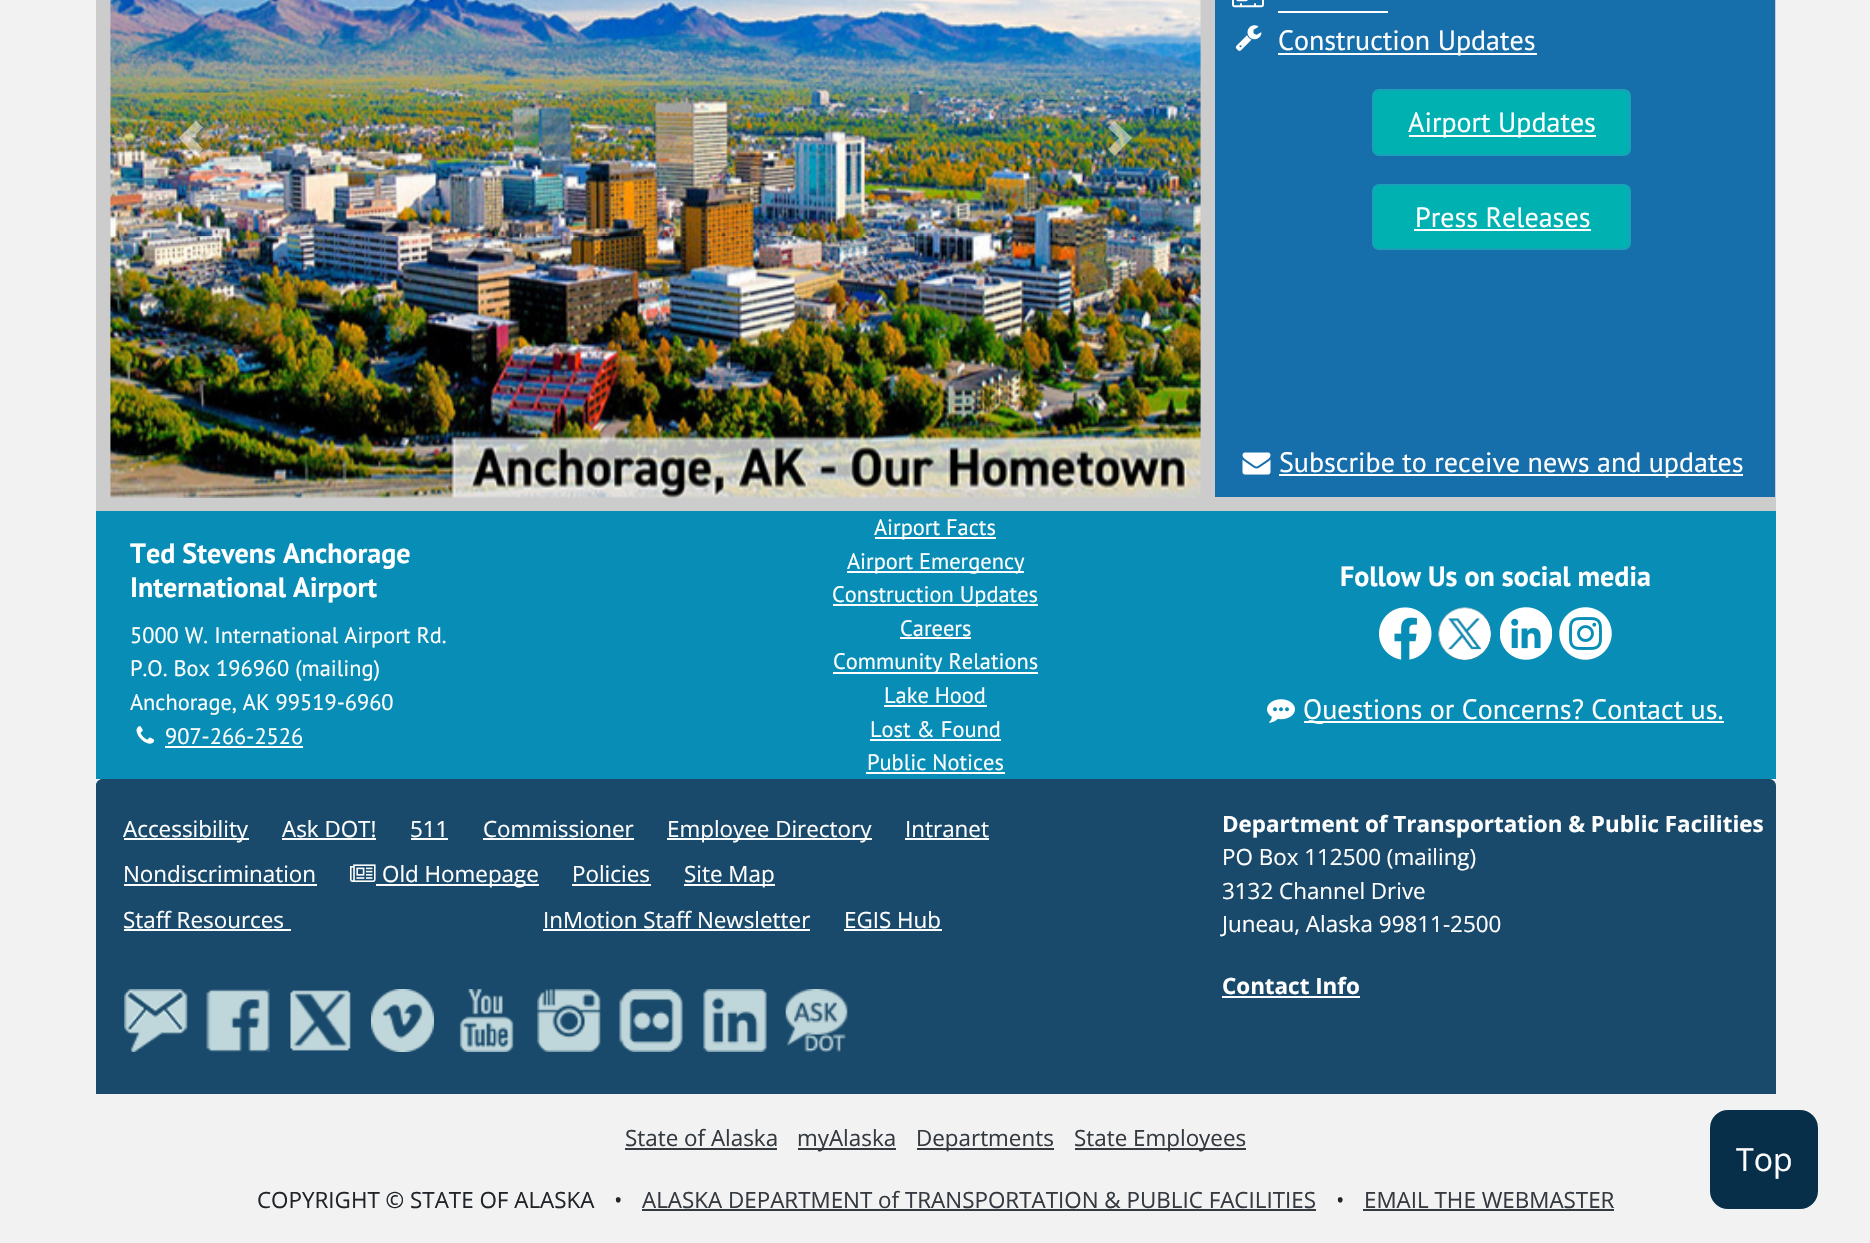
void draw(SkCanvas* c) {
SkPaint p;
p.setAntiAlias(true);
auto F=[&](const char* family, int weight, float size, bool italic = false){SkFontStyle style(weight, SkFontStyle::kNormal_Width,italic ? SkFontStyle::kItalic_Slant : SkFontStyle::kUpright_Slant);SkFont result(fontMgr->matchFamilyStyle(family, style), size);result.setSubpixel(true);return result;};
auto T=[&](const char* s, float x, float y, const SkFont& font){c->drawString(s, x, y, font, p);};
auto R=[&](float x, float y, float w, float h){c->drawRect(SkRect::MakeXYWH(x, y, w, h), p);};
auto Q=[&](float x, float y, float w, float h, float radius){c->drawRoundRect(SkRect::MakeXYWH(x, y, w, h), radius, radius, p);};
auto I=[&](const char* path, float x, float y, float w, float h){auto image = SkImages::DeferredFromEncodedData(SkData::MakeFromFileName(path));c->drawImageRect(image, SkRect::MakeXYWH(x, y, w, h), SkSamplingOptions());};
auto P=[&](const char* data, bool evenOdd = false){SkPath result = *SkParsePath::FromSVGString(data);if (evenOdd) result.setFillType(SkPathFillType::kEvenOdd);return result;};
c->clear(0xfff2f2f2);
p.setColor(0xffcccccc);
R(96,0,1680,511);
I("1.png",110,0,1091,498);
p.setColor(0x80ffffff);
c->drawPath(P("M196 121l-17.5 17l17.5 18l7-7l-11-11l11-10.5z"),p);
c->drawPath(P("M1114.5 121l-6.5 6.5l11 10.5l-11 11l6.5 7l17.5-18z"),p);
p.setColor(0xff166eaa);
R(1215,0,560,497);
I("2.png",1232,0,32,8);
p.setColor(0xffffffff);
R(1278,11,110,2);
I("3.png",1235,25,27,26);
R(1278,53,259,2);
auto f1 = F("PT Sans",400,28);
T("Construction Updates",1278,50,f1);
p.setColor(0xff00b1b2);
c->drawRoundRect(SkRect::MakeXYWH(1373,90,257,65),6,6,p);
p.setStroke(true);
p.setStrokeWidth(2);
p.setColor(0xff17a2b8);
c->drawRoundRect(SkRect::MakeXYWH(1373,90,257,65),6,6,p);
p.setStroke(false);
p.setColor(0xffffffff);
R(1409,135,187,2);
T("Airport Updates",1408,132,f1);
p.setColor(0xff00b1b2);
c->drawRoundRect(SkRect::MakeXYWH(1373,185,257,64),6,6,p);
p.setStroke(true);
p.setColor(0xff17a2b8);
c->drawRoundRect(SkRect::MakeXYWH(1373,185,257,64),6,6,p);
p.setStroke(false);
p.setColor(0xffffffff);
T("Press Releases",1415,227,f1);
R(1414,229,177,2);
I("4.png",1242,452,29,23);
R(1279,474,464,2);
T("Subscribe to receive news and updates",1279,472,f1);
p.setColor(0xff088db6);
R(96,511,1680,268);
auto f2 = F("PT Sans",700,28);
p.setColor(0xffffffff);
T("Ted Stevens Anchorage",130,563,f2);
T("International Airport",130,597,f2);
auto f3 = F("PT Sans",400,22.4);
T("5000 W. International Airport Rd.",130,643,f3);
T("P.O. Box 196960 (mailing)",130,676,f3);
T("Anchorage, AK 99519-6960",130,710,f3);
I("5.png",136,726,19,18);
T("907-266-2526",165,744,f3);
R(165,746,138,2);
R(875,537,121,2);
T("Airport Facts",874,535,f3);
R(847,571,177,2);
T("Airport Emergency",847,569,f3);
R(833,604,205,2);
T("Construction Updates",832,602,f3);
T("Careers",900,636,f3);
R(900,637,71,2);
R(833,672,205,2);
T("Community Relations",833,669,f3);
T("Lake Hood",884,703,f3);
R(884,705,103,2);
T("Lost & Found",870,737,f3);
R(870,739,131,2);
T("Public Notices",867,770,f3);
R(866,772,139,2);
T("Follow Us on social media",1340,586,f2);
I("6.png",1379,607,53,53);
I("7.png",1438,607,53,53);
I("8.png",1500,607,52,53);
I("9.png",1559,607,53,53);
I("10.png",1267,699,28,24);
R(1304,721,420,2);
T("Questions or Concerns? Contact us.",1303,719,f1);
p.setColor(0xff194a6b);
c->drawPath(P("M103 779h1666c4 0 7 3 7 7v308h-1680v-308c0-4 3-7 7-7z"),p);
c->drawPath(P("M103 779h1105c4 0 7 3 7 7v308h-1119v-308c0-4 3-7 7-7z"),p);
p.setColor(0xffffffff);
R(124,838,125,2);
auto f4 = F("Open Sans",400,22.4);
T("Accessibility",123,837,f4);
T("Ask DOT!",282,837,f4);
R(282,838,94,2);
T("511",410,837,f4);
R(411,838,37,2);
T("Commissioner",483,837,f4);
R(483,838,151,2);
R(667,838,205,2);
T("Employee Directory",667,837,f4);
T("Intranet",905,837,f4);
R(905,838,84,2);
T("Nondiscrimination",123,882,f4);
R(124,884,193,2);
I("11.png",350,864,26,18);
R(376,884,163,2);
T("Old Homepage",382,882,f4);
T("Policies",572,882,f4);
R(572,884,79,2);
R(684,884,91,2);
T("Site Map",684,882,f4);
T("Staff Resources",123,928,f4);
R(124,929,167,2);
T("InMotion Staff Newsletter",543,928,f4);
R(543,929,267,2);
T("EGIS Hub",844,928,f4);
R(844,929,98,2);
I("12.png",124,989,64,63);
I("13.png",206,989,64,63);
I("14.png",290,990,61,61);
I("15.png",371,989,63,63);
I("16.png",459,989,55,63);
I("17.png",537,989,64,63);
I("18.png",619,989,64,63);
I("19.png",703,989,64,63);
I("20.png",785,989,63,63);
p.setColor(0xff194a6b);
c->drawPath(P("M1222 779h546c4 0 7 3 7 7v308h-560v-308c0-4 3-7 7-7z"),p);
auto f5 = F("Open Sans",700,22.4);
p.setColor(0xffffffff);
T("Department of Transportation & Public Facilities",1222,832,f5);
T("PO Box 112500 (mailing)",1222,865,f4);
T("3132 Channel Drive",1222,899,f4);
T("Juneau, Alaska 99811-2500",1222,932,f4);
T("Contact Info",1222,994,f5);
R(1222,996,138,2);
p.setColor(0xff343a40);
T("State of Alaska",625,1146,f4);
R(625,1148,152,2);
R(798,1148,98,2);
T("myAlaska",797,1146,f4);
R(917,1148,137,2);
T("Departments",916,1146,f4);
R(1075,1148,171,2);
T("State Employees",1074,1146,f4);
p.setColor(0xff212529);
T("COPYRIGHT © STATE OF ALASKA",257,1208,f4);
T("•",614,1208,f4);
p.setColor(0xff343a40);
T("ALASKA DEPARTMENT of TRANSPORTATION & PUBLIC FACILITIES",642,1208,f4);
R(642,1209,674,2);
p.setColor(0xff212529);
T("•",1336,1208,f4);
p.setColor(0xff343a40);
T("EMAIL THE WEBMASTER",1364,1208,f4);
R(1363,1209,251,2);
p.setColor(0xff072f49);
Q(1710,1110,108,99,18);
auto f6 = F("Open Sans",400,32);
p.setColor(0xffffffff);
T("Top",1736,1171,f6);
}
